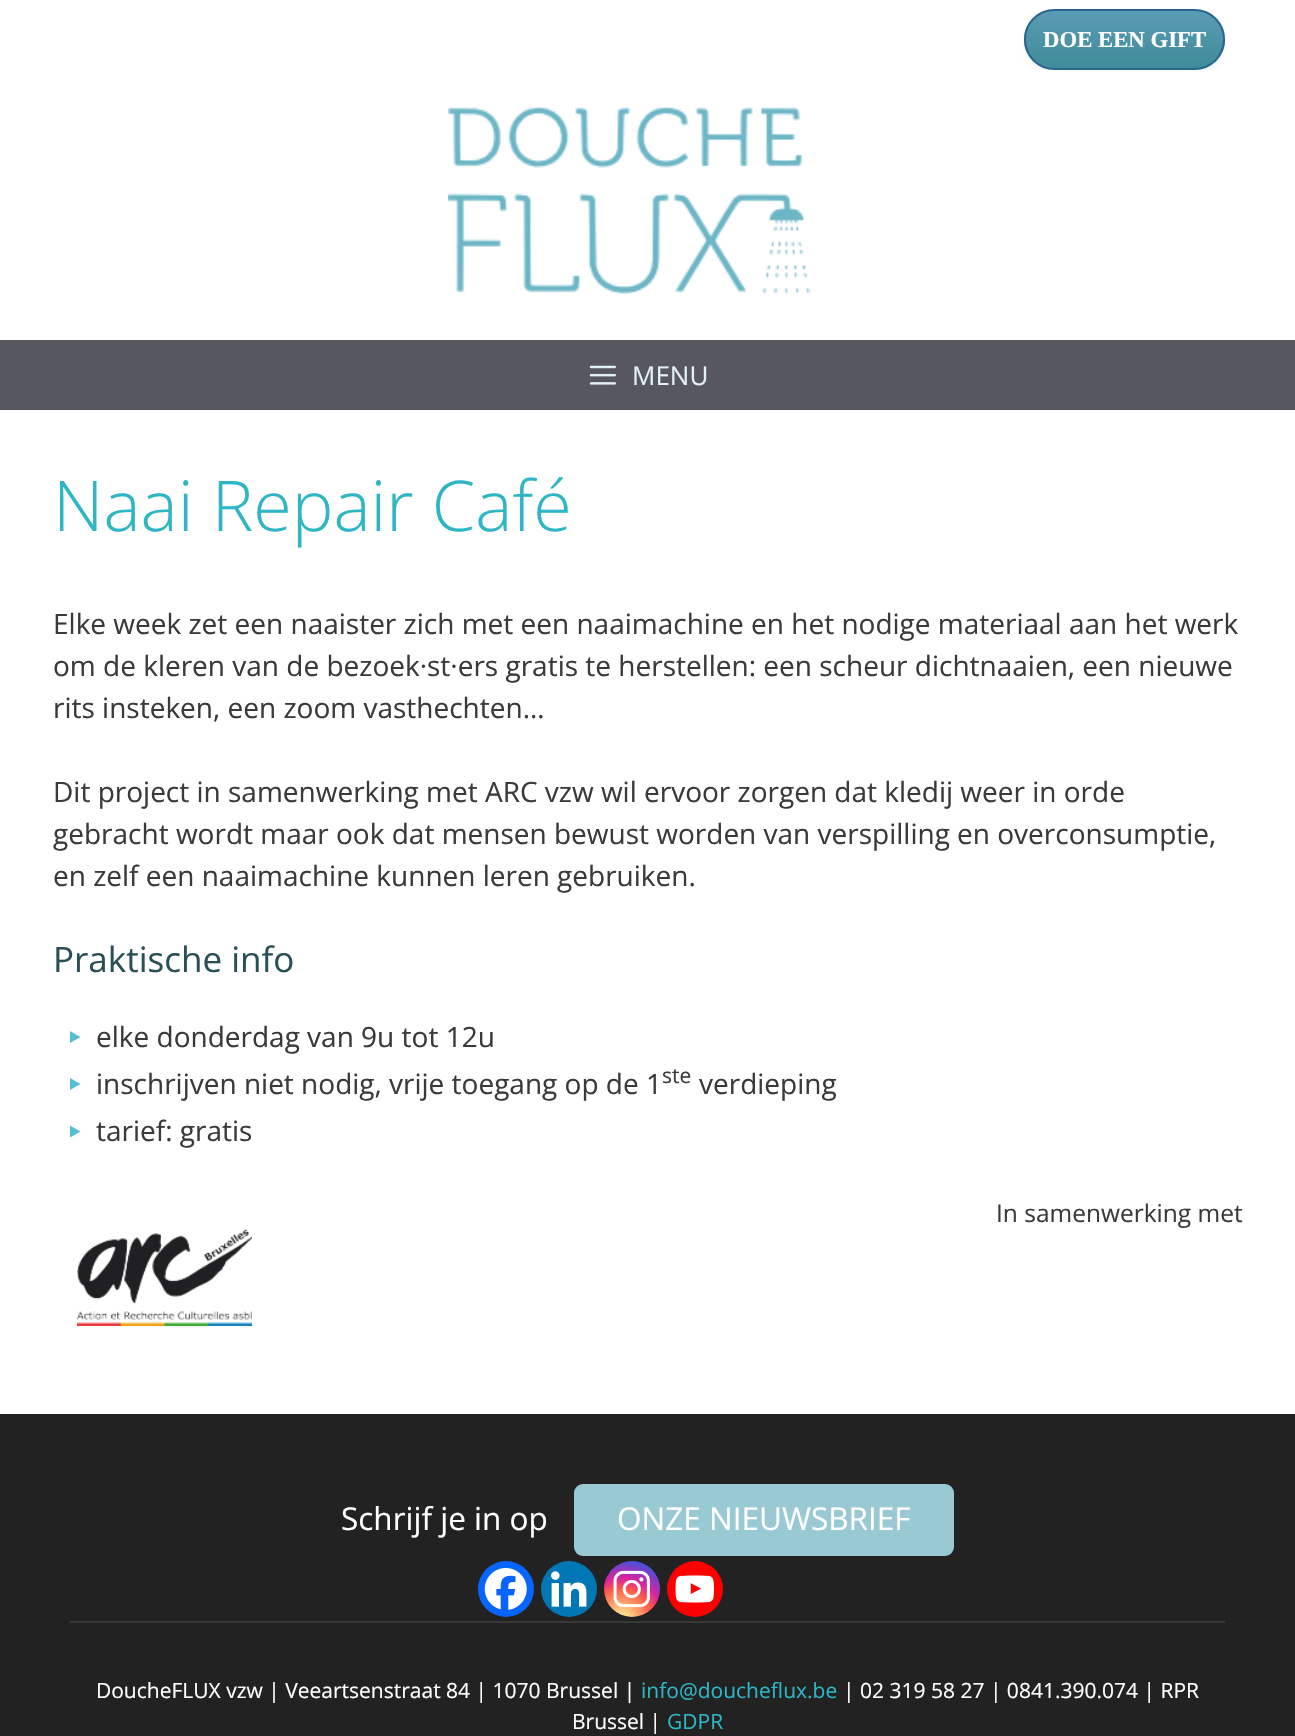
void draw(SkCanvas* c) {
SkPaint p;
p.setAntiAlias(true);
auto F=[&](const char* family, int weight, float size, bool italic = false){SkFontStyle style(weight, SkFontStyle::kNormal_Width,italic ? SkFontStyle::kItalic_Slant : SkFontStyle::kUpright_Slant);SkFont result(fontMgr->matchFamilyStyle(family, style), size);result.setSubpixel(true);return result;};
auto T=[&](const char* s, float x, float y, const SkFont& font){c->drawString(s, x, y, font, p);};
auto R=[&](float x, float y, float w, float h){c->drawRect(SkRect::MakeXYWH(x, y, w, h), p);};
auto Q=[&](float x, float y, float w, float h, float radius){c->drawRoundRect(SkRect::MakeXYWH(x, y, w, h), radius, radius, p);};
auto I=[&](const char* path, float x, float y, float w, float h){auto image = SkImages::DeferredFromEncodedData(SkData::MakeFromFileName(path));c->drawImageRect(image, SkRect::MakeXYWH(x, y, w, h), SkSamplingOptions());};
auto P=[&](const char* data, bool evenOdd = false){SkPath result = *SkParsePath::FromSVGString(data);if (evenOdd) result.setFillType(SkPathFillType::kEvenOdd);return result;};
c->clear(0xffffffff);
c->save();
c->clipRect(SkRect::MakeXYWH(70,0,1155,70));
p.setColor(0xff276873);
p.setMaskFilter(SkMaskFilter::MakeBlur(kNormal_SkBlurStyle, 12));
c->drawRoundRect(SkRect::MakeXYWH(1048,49,153,12),6,6,p);
p.setMaskFilter(nullptr);
c->restore();
c->save();
c->clipPath(P("M1054.5 9h140c17 0 30.5 13.5 30.5 30.5c0 17-13.5 30.5-30.5 30.5h-140c-17 0-30.5-13.5-30.5-30.5c0-17 13.5-30.5 30.5-30.5z"),true);
{
const SkColor colors[] = {0xff599bb3,0xff408c99};
const float stops[] = {.05,1};
const SkPoint ends[] = {{1124,10}, {1124,68}};
p.setShader(SkGradientShader::MakeLinear(ends, colors, stops, 2, SkTileMode::kClamp));
p.setAlpha(255);
}
R(1024,11,201,57);
c->restore();
p.setStroke(true);
p.setStrokeWidth(2);
p.setShader(nullptr);
p.setColor(0xff29668f);
c->drawRoundRect(SkRect::MakeXYWH(1025,10,199,59),29.5,29.5,p);
auto f1 = F("Liberation Serif",700,22.75);
p.setStroke(false);
p.setColor(0xffffffff);
T("DOE EEN GIFT",1043,47,f1);
I("1.png",448,106,363,188);
p.setColor(0xff575760);
R(0,340,1295,70);
I("2.png",589,365,27,20);
auto f2 = F("Open Sans",400,26);
p.setColor(0xffe1f0f3);
T("MENU",632,385,f2);
auto f3 = F("Open Sans",300,70);
p.setColor(0xff2eb6c4);
T("Naai Repair Café",53,531,f3);
auto f4 = F("Open Sans",400,28);
p.setColor(0xff3a3a3a);
T("Elke week zet een naaister zich met een naaimachine en het nodige materiaal aan het werk",53,634,f4);
T("om de kleren van de bezoek·st·ers gratis te herstellen: een scheur dichtnaaien, een nieuwe",53,676,f4);
T("rits insteken, een zoom vasthechten…",53,718,f4);
T("Dit project in samenwerking met ARC vzw wil ervoor zorgen dat kledij weer in orde",53,802,f4);
T("gebracht wordt maar ook dat mensen bewust worden van verspilling en overconsumptie,",53,844,f4);
T("en zelf een naaimachine kunnen leren gebruiken.",53,886,f4);
auto f5 = F("Open Sans",400,35);
p.setColor(0xff294f57);
T("Praktische info",53,972,f5);
p.setColor(0xff54bed3);
c->drawPath(P("M70 1031l10.5 6l-10.5 6zm0 47l10.5 6l-10.5 6z"),p);
p.setColor(0xff3a3a3a);
T("elke donderdag van 9u tot 12u",96,1047,f4);
T("inschrijven niet nodig, vrije toegang op de 1",96,1094,f4);
auto f6 = F("Open Sans",400,21);
T("ste",662,1083,f6);
T("verdieping",699,1094,f4);
p.setColor(0xff54bed3);
c->drawPath(P("M70 1125.5l10.5 6l-10.5 6z"),p);
p.setColor(0xff3a3a3a);
T("tarief: gratis",96,1141,f4);
auto f7 = F("Open Sans",400,24.5);
T("In samenwerking met",996,1222,f7);
I("3.png",77,1229,175,97);
p.setColor(0xff222222);
R(0,1414,1295,322);
p.setColor(0xff383838);
R(70,1621,1155,2);
auto f8 = F("Open Sans",400,31.5);
p.setColor(0xffffffff);
T("Schrijf je in op",341,1530,f8);
p.setColor(0xff99c9d3);
Q(574,1484,380,72,9);
p.setColor(0xffffffff);
T("ONZE NIEUWSBRIEF",617,1530,f8);
p.setColor(0xff0765fe);
c->drawCircle(506,1589,28,p);
I("4.png",484,1568,43,42);
p.setColor(0xff0077b5);
c->drawCircle(569,1589,28,p);
I("5.png",551,1571,36,36);
{
const SkColor colors[] = {0xfffdf497,0xfffdf497,0xfffd5949,0xffd6249f,0xff285aeb};
const float stops[] = {0,.05,.45,.6,.9};
p.setShader(SkGradientShader::MakeRadial({621,1621}, 72, colors, stops, 5, SkTileMode::kClamp));
p.setAlpha(255);
}
c->drawCircle(632,1589,28,p);
I("6.png",613,1570,37,38);
p.setShader(nullptr);
p.setColor(0xffff0000);
c->drawCircle(695,1589,28,p);
I("7.png",675,1575,39,28);
p.setColor(0xffffffff);
T("DoucheFLUX vzw | Veeartsenstraat 84 | 1070 Brussel |",96,1698,f6);
p.setColor(0xff2eb6c4);
T("info@doucheflux.be",641,1698,f6);
p.setColor(0xffffffff);
T("| 02 319 58 27 | 0841.390.074 | RPR",843,1698,f6);
T("Brussel |",572,1729,f6);
p.setColor(0xff2eb6c4);
T("GDPR",667,1729,f6);
}
